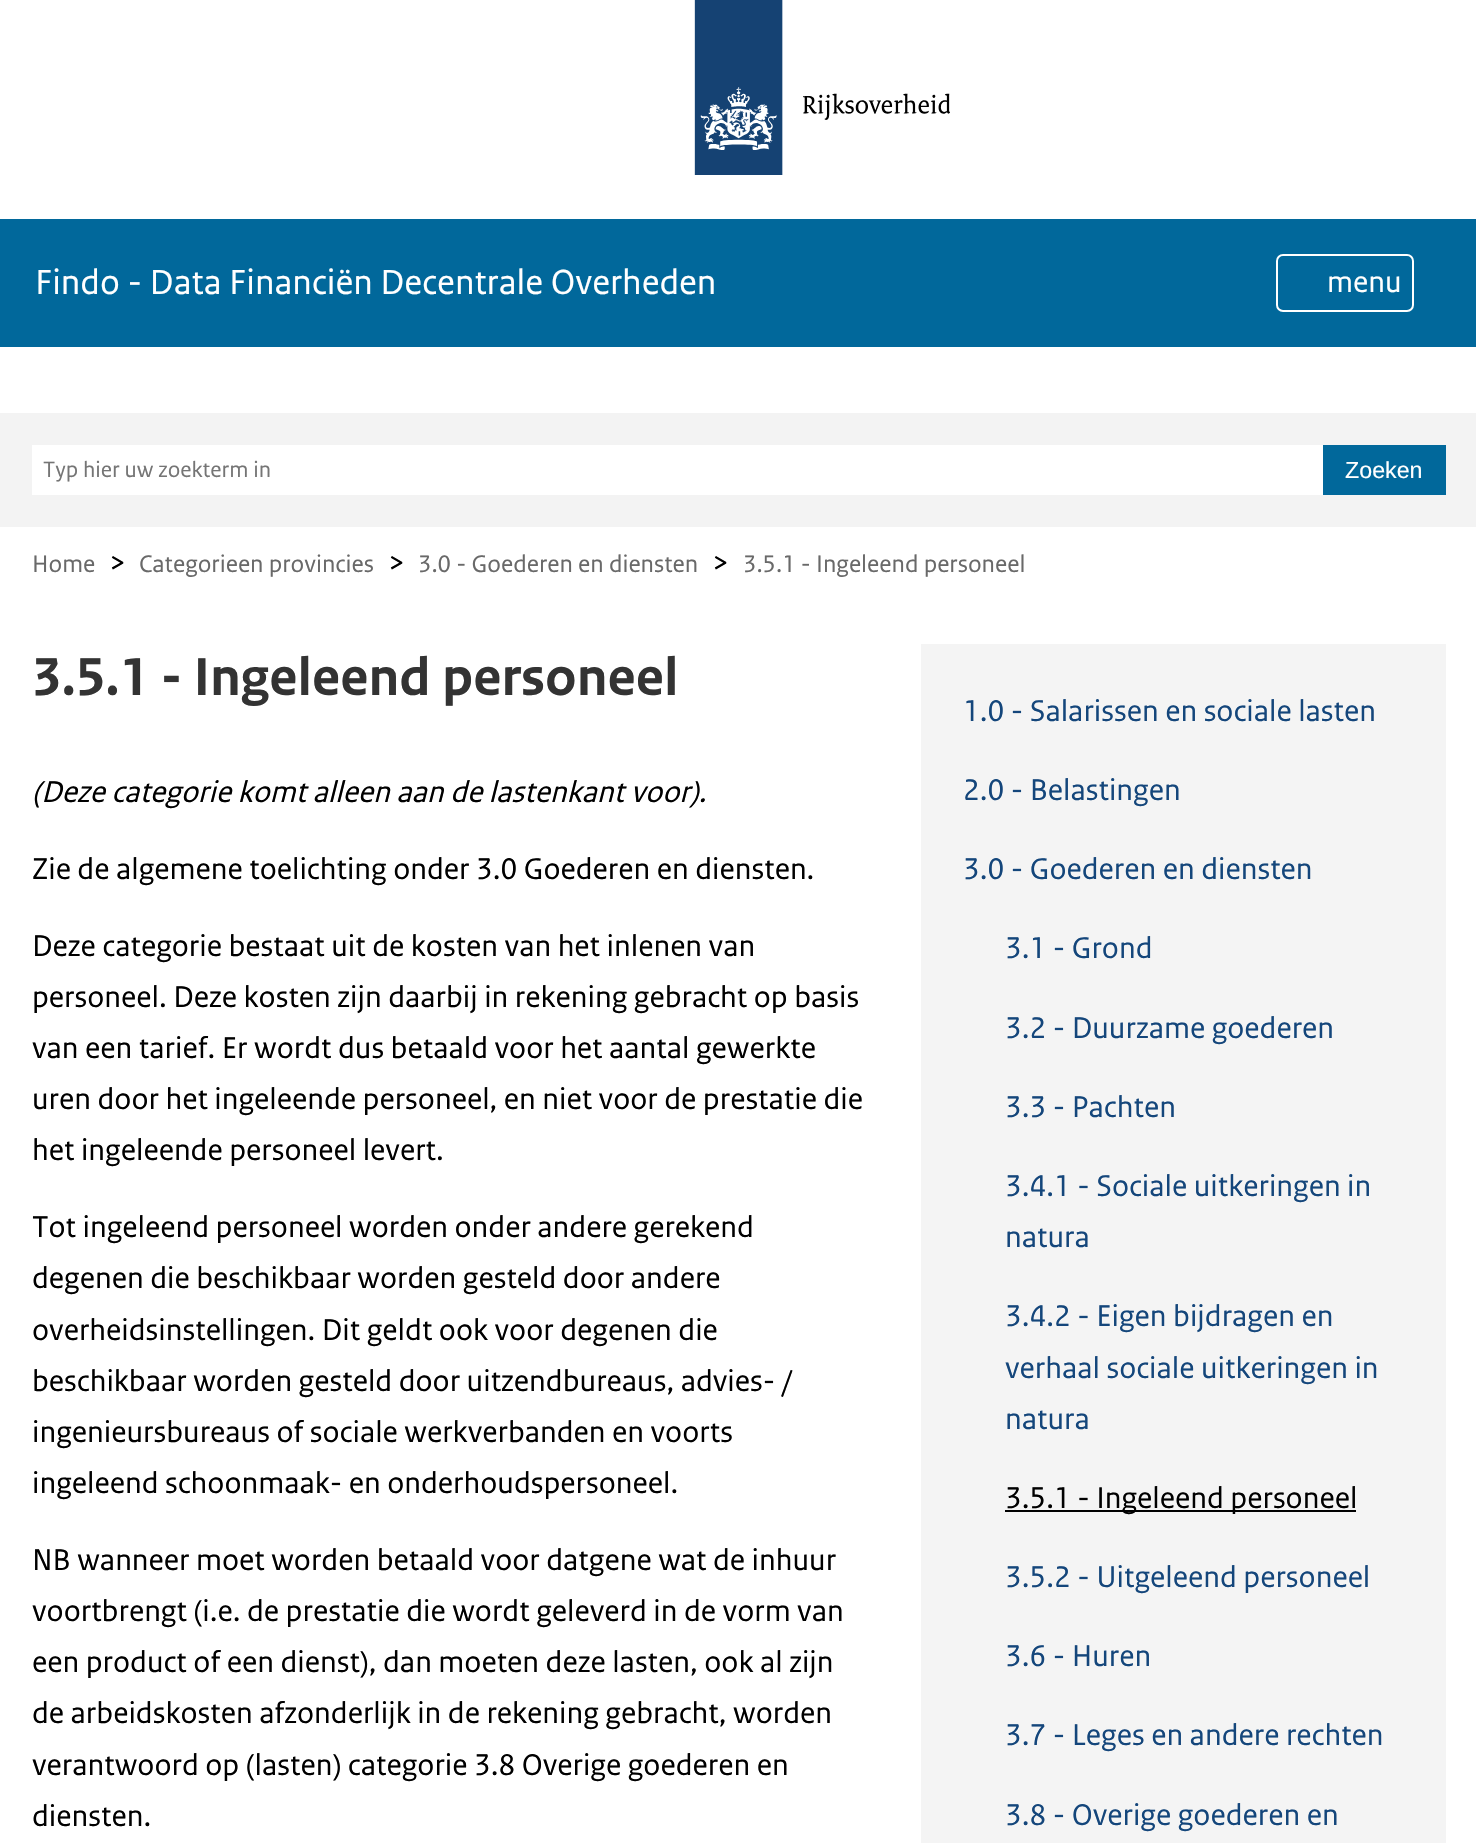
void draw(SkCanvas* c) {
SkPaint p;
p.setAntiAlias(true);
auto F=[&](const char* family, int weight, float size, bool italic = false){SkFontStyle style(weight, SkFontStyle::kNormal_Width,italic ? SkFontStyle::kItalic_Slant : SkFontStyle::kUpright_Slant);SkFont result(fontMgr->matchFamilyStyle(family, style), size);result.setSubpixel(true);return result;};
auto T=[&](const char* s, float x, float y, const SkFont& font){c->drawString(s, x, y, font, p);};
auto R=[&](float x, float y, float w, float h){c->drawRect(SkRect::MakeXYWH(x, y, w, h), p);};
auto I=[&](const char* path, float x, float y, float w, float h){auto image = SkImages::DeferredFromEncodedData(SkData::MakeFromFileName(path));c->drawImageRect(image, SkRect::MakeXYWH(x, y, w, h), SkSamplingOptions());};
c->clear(0xffffffff);
I("1.png",694,0,256,175);
p.setColor(0xff01689b);
R(0,219,1476,128);
auto f1 = F("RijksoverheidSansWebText",400,36.75);
p.setColor(0xffffffff);
T("Findo - Data Financiën Decentrale Overheden",35,294,f1);
p.setStroke(true);
p.setStrokeWidth(2);
c->drawRoundRect(SkRect::MakeXYWH(1277,255,136,56),6,6,p);
auto f2 = F("RijksoverheidSansWebText",400,31.5);
p.setStroke(false);
T("menu",1327,292,f2);
p.setColor(0xfff3f3f3);
R(0,413,1476,114);
p.setColor(0xffffffff);
R(32,445,1291,50);
auto f3 = F("RijksoverheidSansWebText",400,23.25);
p.setColor(0xff757575);
T("Typ hier uw zoekterm in",43,477,f3);
p.setColor(0xff01689b);
R(1323,445,123,50);
auto f4 = F("Liberation Sans",400,23.25);
p.setColor(0xffffffff);
T("Zoeken",1345,478,f4);
auto f5 = F("RijksoverheidSansWebText",400,25.25);
p.setColor(0xff696969);
T("Home",32,572,f5);
p.setColor(0xff000000);
T(">",109,572,f2);
p.setColor(0xff696969);
T("Categorieen provincies",139,572,f5);
p.setColor(0xff000000);
T(">",388,572,f2);
p.setColor(0xff696969);
T("3.0 - Goederen en diensten",418,572,f5);
p.setColor(0xff000000);
T(">",712,572,f2);
p.setColor(0xff696969);
T("3.5.1 - Ingeleend personeel",743,572,f5);
auto f6 = F("RijksoverheidSansWebText",700,56);
p.setColor(0xff333333);
T("3.5.1 - Ingeleend personeel",32,695,f6);
auto f7 = F("RijksoverheidSansWebText",400,31.5,true);
p.setColor(0xff000000);
T("(Deze categorie komt alleen aan de lastenkant voor).",32,802,f7);
T("Zie de algemene toelichting onder 3.0 Goederen en diensten.",32,879,f2);
T("Deze categorie bestaat uit de kosten van het inlenen van",32,956,f2);
T("personeel. Deze kosten zijn daarbij in rekening gebracht op basis",32,1007,f2);
T("van een tarief. Er wordt dus betaald voor het aantal gewerkte",32,1058,f2);
T("uren door het ingeleende personeel, en niet voor de prestatie die",32,1109,f2);
T("het ingeleende personeel levert.",32,1160,f2);
T("Tot ingeleend personeel worden onder andere gerekend",32,1237,f2);
T("degenen die beschikbaar worden gesteld door andere",32,1288,f2);
T("overheidsinstellingen. Dit geldt ook voor degenen die",32,1340,f2);
T("beschikbaar worden gesteld door uitzendbureaus, advies- /",32,1391,f2);
T("ingenieursbureaus of sociale werkverbanden en voorts",32,1442,f2);
T("ingeleend schoonmaak- en onderhoudspersoneel.",32,1493,f2);
T("NB wanneer moet worden betaald voor datgene wat de inhuur",32,1570,f2);
T("voortbrengt (i.e. de prestatie die wordt geleverd in de vorm van",32,1621,f2);
T("een product of een dienst), dan moeten deze lasten, ook al zijn",32,1672,f2);
T("de arbeidskosten afzonderlijk in de rekening gebracht, worden",32,1723,f2);
T("verantwoord op (lasten) categorie 3.8 Overige goederen en",32,1775,f2);
T("diensten.",32,1826,f2);
p.setColor(0xfff4f4f4);
R(921,644,525,1199);
p.setColor(0xff14467b);
T("1.0 - Salarissen en sociale lasten",963,721,f2);
T("2.0 - Belastingen",963,800,f2);
T("3.0 - Goederen en diensten",963,879,f2);
T("3.1 - Grond",1005,958,f2);
T("3.2 - Duurzame goederen",1005,1038,f2);
T("3.3 - Pachten",1005,1117,f2);
T("3.4.1 - Sociale uitkeringen in",1005,1196,f2);
T("natura",1005,1247,f2);
T("3.4.2 - Eigen bijdragen en",1005,1326,f2);
T("verhaal sociale uitkeringen in",1005,1378,f2);
T("natura",1005,1429,f2);
p.setColor(0xff000000);
R(1005,1510,351,2);
T("3.5.1 - Ingeleend personeel",1005,1508,f2);
p.setColor(0xff14467b);
T("3.5.2 - Uitgeleend personeel",1005,1587,f2);
T("3.6 - Huren",1005,1666,f2);
T("3.7 - Leges en andere rechten",1005,1745,f2);
T("3.8 - Overige goederen en",1005,1825,f2);
}
